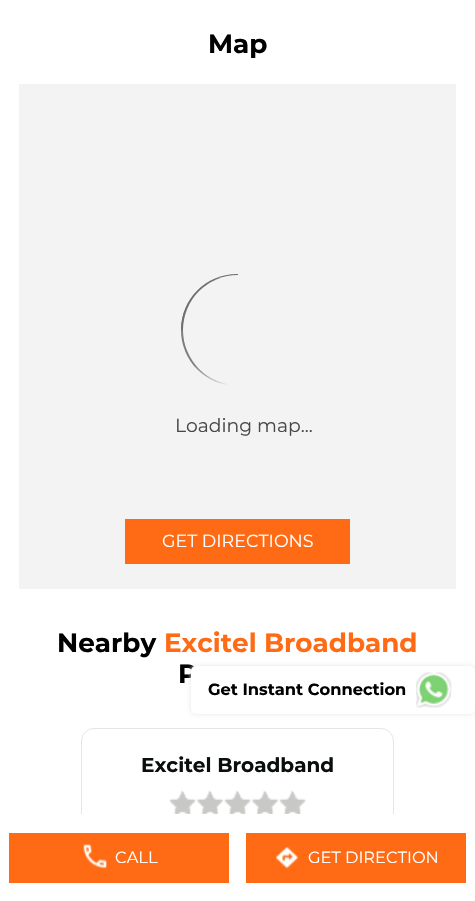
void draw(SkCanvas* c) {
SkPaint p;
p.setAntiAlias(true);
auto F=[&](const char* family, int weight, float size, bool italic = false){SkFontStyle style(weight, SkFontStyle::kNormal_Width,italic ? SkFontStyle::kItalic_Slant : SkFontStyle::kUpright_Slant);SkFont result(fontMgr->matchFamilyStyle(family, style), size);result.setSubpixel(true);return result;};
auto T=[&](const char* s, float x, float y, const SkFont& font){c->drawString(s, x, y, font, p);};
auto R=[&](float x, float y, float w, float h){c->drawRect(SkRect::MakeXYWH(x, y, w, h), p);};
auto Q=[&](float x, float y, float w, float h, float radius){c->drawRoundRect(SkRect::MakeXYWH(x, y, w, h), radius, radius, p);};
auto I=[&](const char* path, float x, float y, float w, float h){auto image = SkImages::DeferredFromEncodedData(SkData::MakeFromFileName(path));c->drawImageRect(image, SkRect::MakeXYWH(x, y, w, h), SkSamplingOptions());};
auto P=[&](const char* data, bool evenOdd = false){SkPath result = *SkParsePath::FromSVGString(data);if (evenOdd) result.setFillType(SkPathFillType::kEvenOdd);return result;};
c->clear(0xffffffff);
auto f1 = F("Montserrat",700,26.25);
p.setColor(0xff000000);
T("Map",208,53,f1);
p.setColor(0xfff3f3f3);
R(19,84,437,505);
{
const SkColor colors[] = {0xff7d7d7d,0xfff3f3f3};
const float stops[] = {.1,.42};
const SkPoint ends[] = {{181,330}, {294,330}};
p.setShader(SkGradientShader::MakeLinear(ends, colors, stops, 2, SkTileMode::kClamp));
p.setAlpha(255);
}
Q(181,274,113,112,56);
p.setShader(nullptr);
p.setColor(0xff6f6f6f);
c->drawPath(P("M237 274h1v56h-57c0-31 25-56 56-56z"),p);
p.setColor(0xfff3f3f3);
c->drawCircle(238,330,55,p);
auto f2 = F("Montserrat",400,18.75);
p.setColor(0xff484848);
T("Loading map...",175,432,f2);
p.setColor(0xffff6a14);
R(125,519,225,45);
auto f3 = F("Montserrat",400,17.5);
p.setColor(0xffffffff);
T("GET DIRECTIONS",162,547,f3);
p.setColor(0xff000000);
T("Nearby",57,652,f1);
p.setColor(0xffff6a14);
T("Excitel Broadband",164,652,f1);
p.setColor(0xff000000);
T("P",178,683,f1);
p.setStroke(true);
p.setStrokeWidth(1);
p.setColor(0xffe6e6e6);
c->drawRoundRect(SkRect::MakeXYWH(81.5,728.5,312,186),12.5,12.5,p);
auto f4 = F("Montserrat",700,20);
p.setStroke(false);
p.setColor(0xff0a0f0d);
T("Excitel Broadband",141,772,f4);
I("1.png",169,790,27,24);
I("2.png",197,790,27,24);
I("1.png",224,790,27,24);
I("2.png",252,790,27,24);
I("1.png",279,790,27,24);
p.setColor(0xffffffff);
R(81,814,313,87);
p.setColor(0xffff6a14);
R(9,833,220,50);
I("3.png",83,844,24,25);
auto f5 = F("Montserrat",400,16.25);
p.setColor(0xffffffff);
T("CALL",115,863,f5);
p.setColor(0xffff6a14);
R(246,833,220,50);
I("4.png",276,846,22,23);
p.setColor(0xffffffff);
T("GET DIRECTION",308,863,f5);
p.setColor(0xffe6e6e6);
p.setMaskFilter(SkMaskFilter::MakeBlur(kNormal_SkBlurStyle, 2));
c->drawRoundRect(SkRect::MakeXYWH(191,666,284,48),5,5,p);
p.setMaskFilter(nullptr);
p.setColor(0xffffffff);
Q(191,666,284,48,5);
auto f6 = F("Montserrat",700,16.25);
p.setColor(0xff000000);
T("Get Instant Connection",208,695,f6);
I("5.png",416,672,36,36);
}
